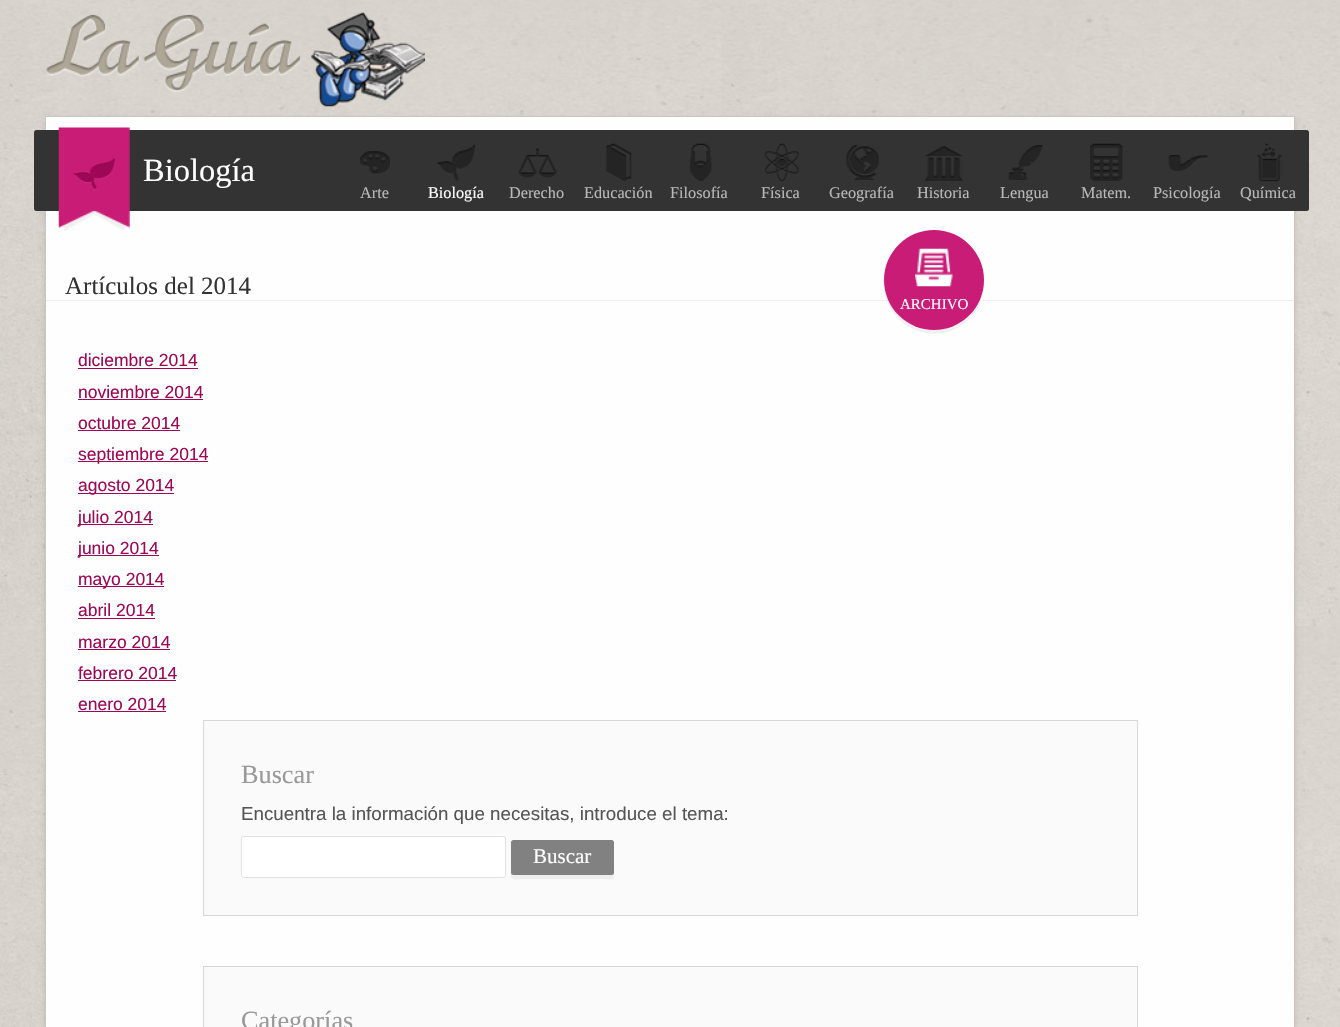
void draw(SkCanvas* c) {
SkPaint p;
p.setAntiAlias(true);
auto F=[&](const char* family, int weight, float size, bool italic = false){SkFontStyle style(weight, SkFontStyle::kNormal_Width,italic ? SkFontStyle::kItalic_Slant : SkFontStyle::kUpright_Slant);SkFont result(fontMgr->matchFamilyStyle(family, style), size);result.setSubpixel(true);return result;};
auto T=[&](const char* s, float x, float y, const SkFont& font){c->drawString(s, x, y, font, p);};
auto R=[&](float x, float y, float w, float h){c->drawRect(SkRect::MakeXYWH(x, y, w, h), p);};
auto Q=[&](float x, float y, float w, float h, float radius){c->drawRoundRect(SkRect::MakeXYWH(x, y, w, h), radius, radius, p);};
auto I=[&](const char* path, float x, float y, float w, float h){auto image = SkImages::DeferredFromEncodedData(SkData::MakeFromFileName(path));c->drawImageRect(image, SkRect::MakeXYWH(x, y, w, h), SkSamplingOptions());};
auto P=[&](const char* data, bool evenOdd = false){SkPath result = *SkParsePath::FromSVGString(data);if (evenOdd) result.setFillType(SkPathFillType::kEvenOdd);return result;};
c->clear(0xffffffff);
I("1.png",0,0,1340,1027);
I("2.png",46,12,379,95);
p.setColor(0x1a000000);
p.setMaskFilter(SkMaskFilter::MakeBlur(kNormal_SkBlurStyle, 3));
c->drawRect(SkRect::MakeXYWH(45,119,1250,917),p);
p.setMaskFilter(nullptr);
p.setColor(0xfffefefe);
c->drawRect(SkRect::MakeXYWH(45.5,116.5,1249,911),p);
p.setStroke(true);
p.setStrokeWidth(1);
p.setColor(0xffc9c5bf);
c->drawRect(SkRect::MakeXYWH(45.5,116.5,1249,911),p);
p.setStroke(false);
p.setColor(0xff333333);
Q(34,130,1275,81,2.5);
I("3.png",58,127,72,104);
I("4.png",73,158,42,32);
auto f1 = F("Liberation Serif",400,32.5);
p.setColor(0xfffffefe);
T("Biología",143,181,f1);
I("5.png",360,151,30,24);
auto f2 = F("Liberation Serif",400,16.25);
p.setColor(0xffb9b9b9);
T("Arte",360,198,f2);
I("6.png",437,145,38,36);
p.setColor(0xfffffefe);
T("Biología",428,198,f2);
I("7.png",518,148,39,30);
p.setColor(0xffb9b9b9);
T("Derecho",509,198,f2);
I("8.png",606,143,26,38);
T("Educación",584,198,f2);
I("9.png",690,143,22,38);
T("Filosofía",670,198,f2);
I("10.png",765,143,34,38);
T("Física",761,198,f2);
I("11.png",846,145,33,35);
T("Geografía",829,198,f2);
I("12.png",925,146,38,35);
T("Historia",917,198,f2);
I("13.png",1008,145,35,35);
T("Lengua",1000,198,f2);
I("14.png",1090,143,33,38);
T("Matem.",1081,198,f2);
I("15.png",1168,155,40,16);
T("Psicología",1153,198,f2);
I("16.png",1257,143,25,39);
T("Química",1240,198,f2);
p.setColor(0xffeeeeee);
R(46,300,1248,1);
auto f3 = F("Liberation Serif",400,25);
p.setColor(0xff333333);
T("Artículos del 2014",65,294,f3);
p.setColor(0x66dfdfdf);
c->drawPath(P("M884 285c1 48 64 67 91 27c7-10 10-22 9-33c0 10-3 20-9 29c-26 38-86 23-91-23z"),p);
p.setColor(0xffc91c76);
c->drawCircle(934,280,50,p);
I("17.png",915,248,38,39);
auto f4 = F("Liberation Serif",400,15);
p.setColor(0xfffffefe);
T("ARCHIVO",900,309,f4);
auto f5 = F("Liberation Sans",400,17.5);
p.setColor(0xff9e0755);
T("diciembre 2014",78,366,f5);
R(78,368,120,1);
T("noviembre 2014",78,398,f5);
R(78,399,125,1);
T("octubre 2014",78,429,f5);
R(78,430,102,1);
R(78,461,130,1);
T("septiembre 2014",78,460,f5);
R(78,493,96,1);
T("agosto 2014",78,491,f5);
R(78,524,75,1);
T("julio 2014",78,523,f5);
R(78,555,81,1);
T("junio 2014",78,554,f5);
R(78,586,86,1);
T("mayo 2014",78,585,f5);
T("abril 2014",78,616,f5);
R(78,618,77,1);
T("marzo 2014",78,648,f5);
R(78,649,92,1);
T("febrero 2014",78,679,f5);
R(78,680,98,1);
T("enero 2014",78,710,f5);
R(78,711,88,1);
p.setColor(0xfffafafa);
c->drawRect(SkRect::MakeXYWH(203.5,720.5,934,195),p);
p.setStroke(true);
p.setColor(0xffd6d6d6);
c->drawRect(SkRect::MakeXYWH(203.5,720.5,934,195),p);
auto f6 = F("Liberation Serif",400,26.25);
p.setStroke(false);
p.setColor(0xff999999);
T("Buscar",241,783,f6);
auto f7 = F("Liberation Sans",400,18.75);
p.setColor(0xff555555);
T("Encuentra la información que necesitas, introduce el tema:",241,820,f7);
p.setColor(0xffffffff);
c->drawRoundRect(SkRect::MakeXYWH(241.5,836.5,264,41),2,2,p);
p.setStroke(true);
p.setColor(0xffe2e2e2);
c->drawRoundRect(SkRect::MakeXYWH(241.5,836.5,264,41),2,2,p);
p.setStroke(false);
p.setColor(0xffeeeeee);
c->drawPath(P("M511 845v21c0 17-2 13 19 13h65c21 0 19 4 19-13v-21v27c0 2-1 3-3 3h-97c-2 0-3-1-3-3z"),p);
p.setColor(0xff818181);
Q(511,840,103,35,2.5);
auto f8 = F("Liberation Serif",400,21);
p.setColor(0xfffffefe);
T("Buscar",533,863,f8);
p.setColor(0xfffafafa);
c->drawRect(SkRect::MakeXYWH(203.5,966.5,934,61),p);
p.setStroke(true);
p.setColor(0xffd6d6d6);
c->drawRect(SkRect::MakeXYWH(203.5,966.5,934,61),p);
p.setStroke(false);
p.setColor(0xff999999);
T("Categorías",241,1029,f6);
}
